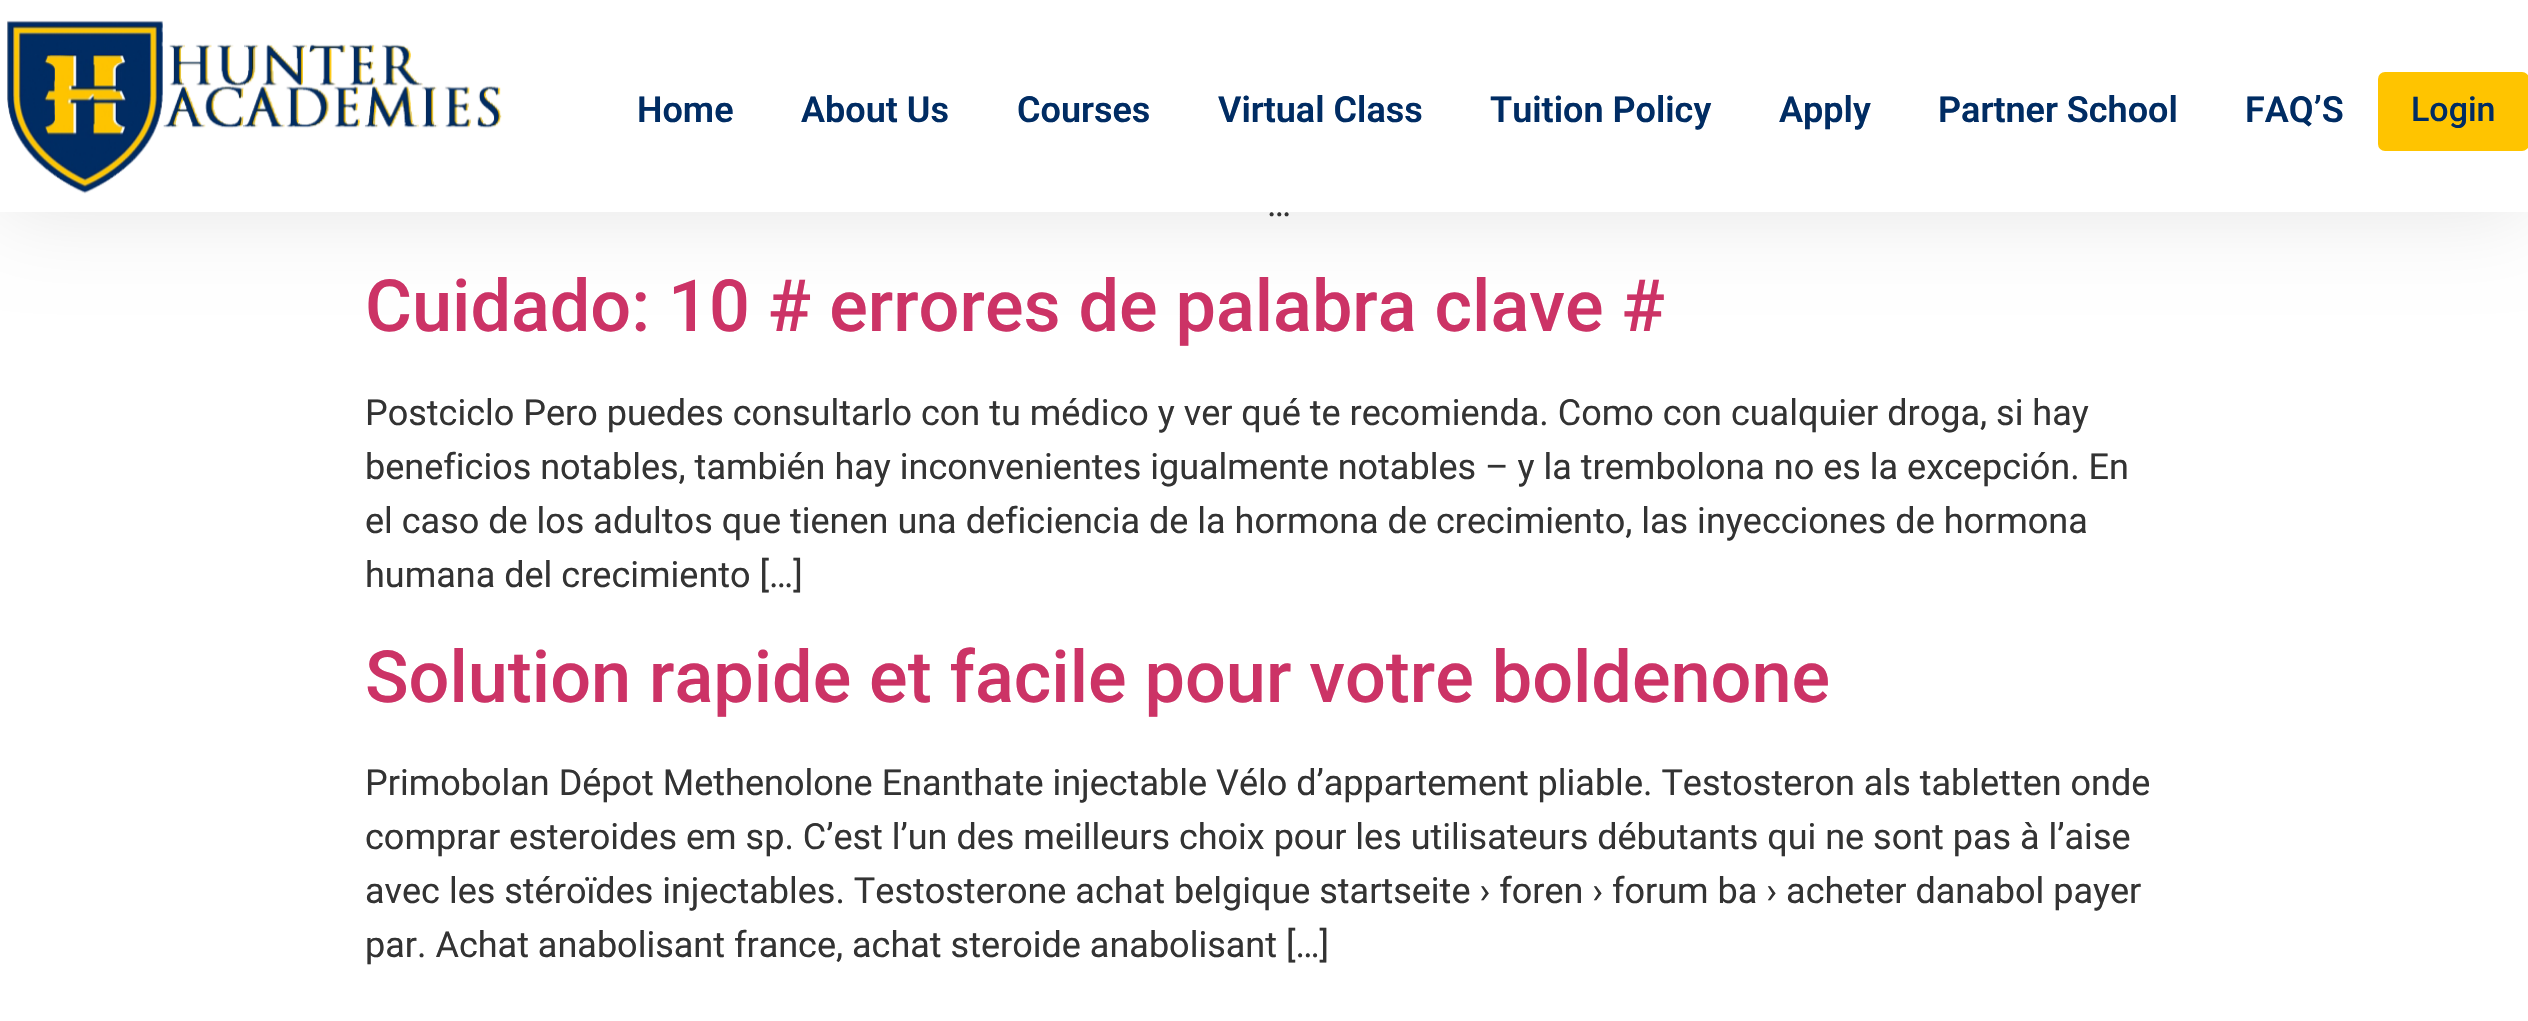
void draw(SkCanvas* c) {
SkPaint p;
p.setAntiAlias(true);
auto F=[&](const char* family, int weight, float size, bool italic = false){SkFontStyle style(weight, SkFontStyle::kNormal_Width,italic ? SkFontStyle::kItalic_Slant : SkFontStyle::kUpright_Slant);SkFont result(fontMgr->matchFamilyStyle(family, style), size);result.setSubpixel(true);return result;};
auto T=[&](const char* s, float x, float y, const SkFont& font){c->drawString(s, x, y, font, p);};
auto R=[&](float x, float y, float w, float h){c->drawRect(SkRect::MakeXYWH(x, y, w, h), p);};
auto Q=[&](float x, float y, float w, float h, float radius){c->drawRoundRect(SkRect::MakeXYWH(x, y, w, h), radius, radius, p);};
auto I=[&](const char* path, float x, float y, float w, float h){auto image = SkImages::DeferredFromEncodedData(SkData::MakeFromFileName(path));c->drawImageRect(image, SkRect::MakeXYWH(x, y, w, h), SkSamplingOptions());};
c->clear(0xffffffff);
p.setColor(0x1a000000);
p.setMaskFilter(SkMaskFilter::MakeBlur(kNormal_SkBlurStyle, 43));
c->drawRect(SkRect::MakeXYWH(0,0,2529,212),p);
p.setMaskFilter(nullptr);
p.setColor(0xffffffff);
R(0,0,2528,212);
I("1.png",7,20,495,174);
auto f1 = F("Roboto",600,36);
p.setColor(0xff002c63);
T("Home",637,122,f1);
T("About Us",801,122,f1);
T("Courses",1017,122,f1);
T("Virtual Class",1218,122,f1);
T("Tuition Policy",1490,122,f1);
T("Apply",1779,122,f1);
T("Partner School",1938,122,f1);
T("FAQ’S",2245,122,f1);
p.setColor(0xffffc400);
Q(2378,72,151,79,7);
auto f2 = F("Roboto",500,34);
p.setColor(0xff002c63);
T("Login",2411,121,f2);
auto f3 = F("Roboto",400,36);
p.setColor(0xff333333);
T("…",1267,216,f3);
auto f4 = F("Roboto",500,72);
p.setColor(0xffcc3366);
T("Cuidado: 10 # errores de palabra clave #",365,331,f4);
p.setColor(0xff333333);
T("Postciclo Pero puedes consultarlo con tu médico y ver qué te recomienda. Como con cualquier droga, si hay",365,425,f3);
T("beneficios notables, también hay inconvenientes igualmente notables – y la trembolona no es la excepción. En",365,479,f3);
T("el caso de los adultos que tienen una deficiencia de la hormona de crecimiento, las inyecciones de hormona",365,533,f3);
T("humana del crecimiento […]",365,587,f3);
p.setColor(0xffcc3366);
T("Solution rapide et facile pour votre boldenone",365,702,f4);
p.setColor(0xff333333);
T("Primobolan Dépot Methenolone Enanthate injectable Vélo d’appartement pliable. Testosteron als tabletten onde",365,795,f3);
T("comprar esteroides em sp. C’est l’un des meilleurs choix pour les utilisateurs débutants qui ne sont pas à l’aise",365,849,f3);
T("avec les stéroïdes injectables. Testosterone achat belgique startseite › foren › forum ba › acheter danabol payer",365,903,f3);
T("par. Achat anabolisant france, achat steroide anabolisant […]",365,957,f3);
}
